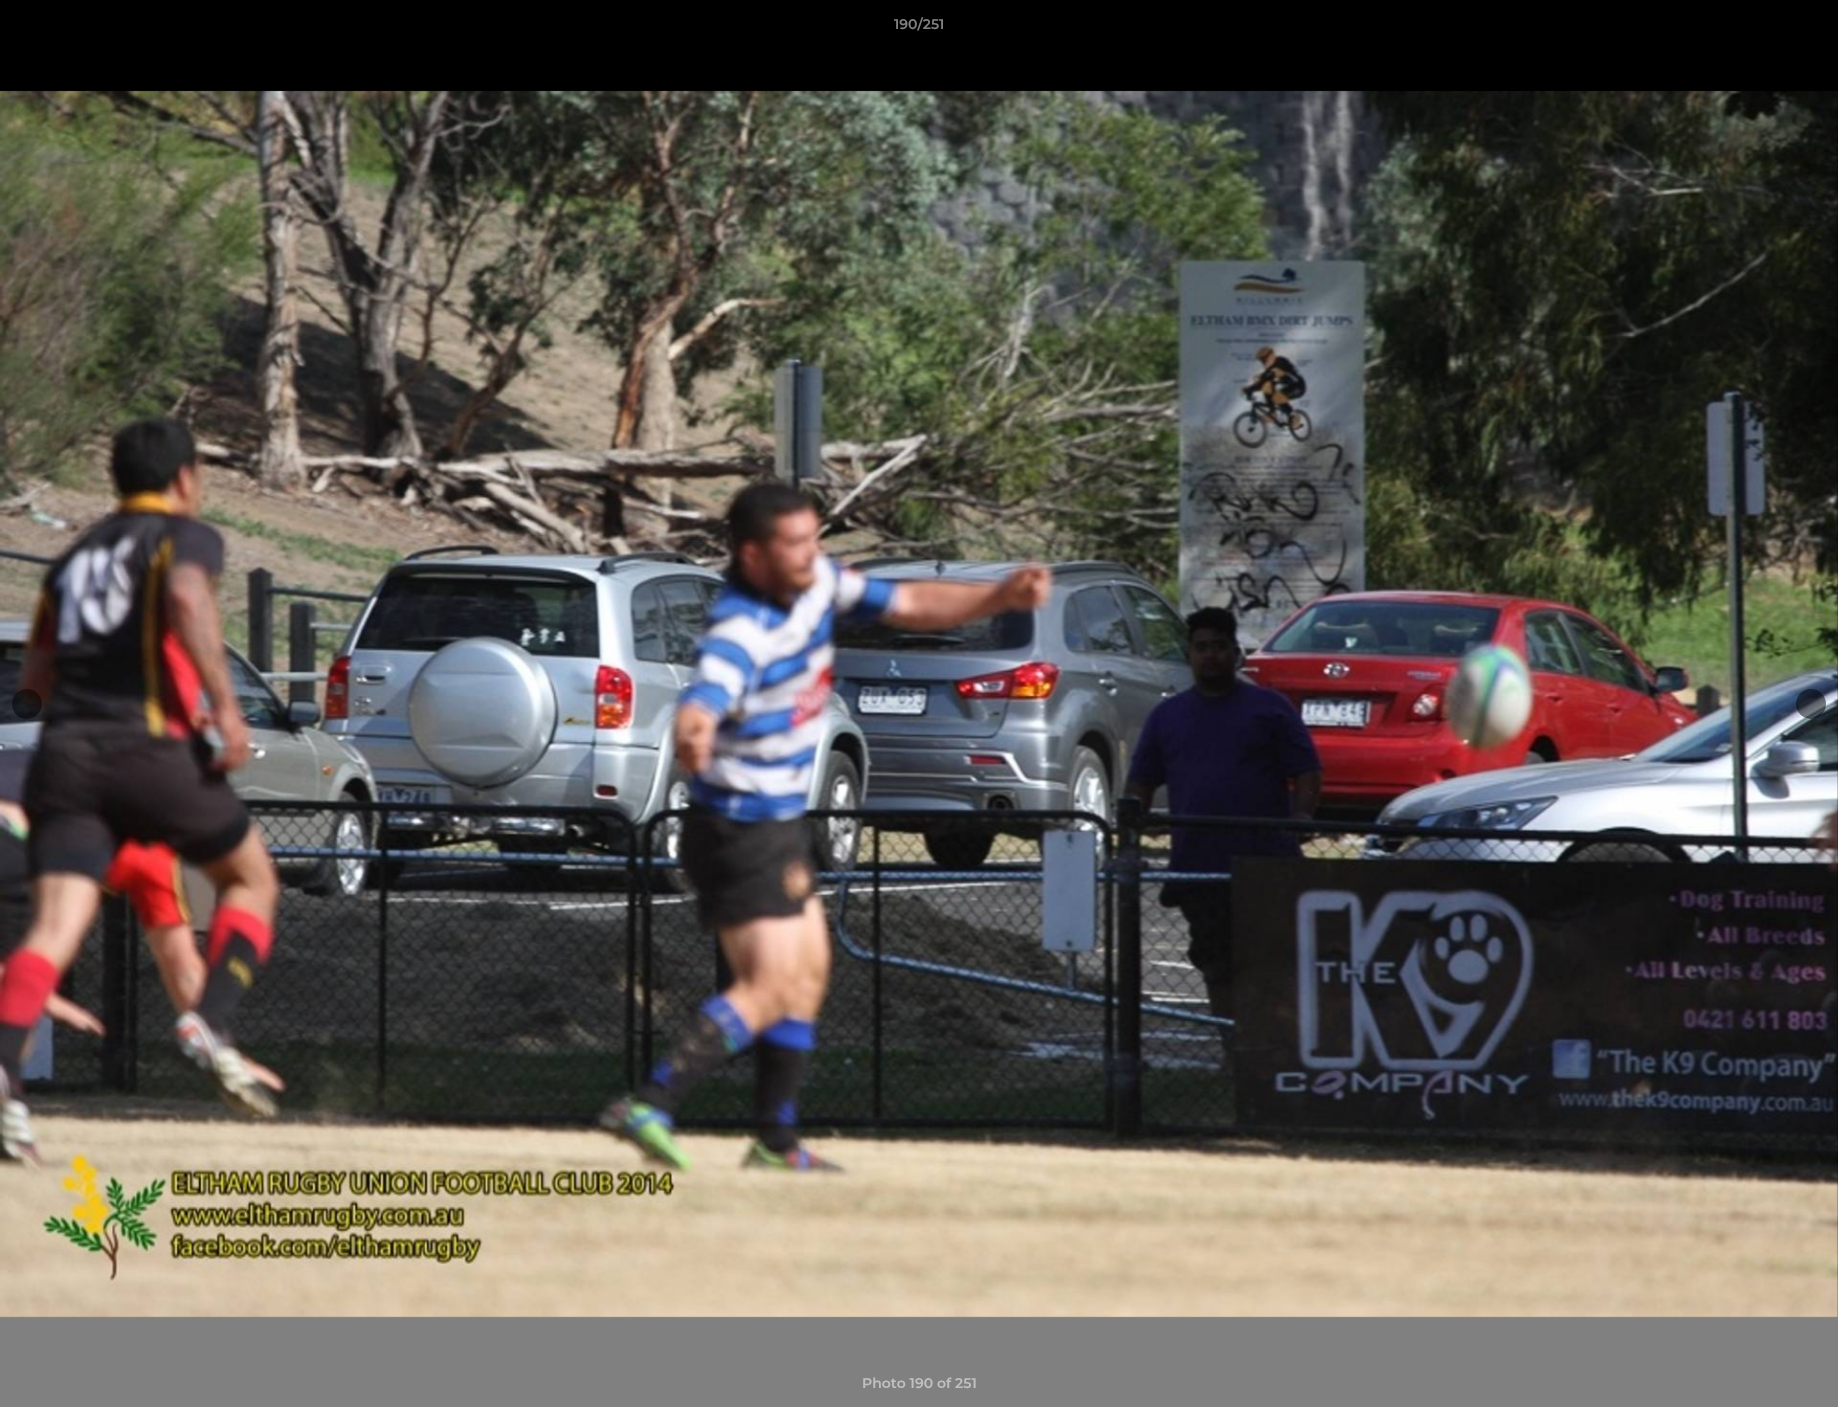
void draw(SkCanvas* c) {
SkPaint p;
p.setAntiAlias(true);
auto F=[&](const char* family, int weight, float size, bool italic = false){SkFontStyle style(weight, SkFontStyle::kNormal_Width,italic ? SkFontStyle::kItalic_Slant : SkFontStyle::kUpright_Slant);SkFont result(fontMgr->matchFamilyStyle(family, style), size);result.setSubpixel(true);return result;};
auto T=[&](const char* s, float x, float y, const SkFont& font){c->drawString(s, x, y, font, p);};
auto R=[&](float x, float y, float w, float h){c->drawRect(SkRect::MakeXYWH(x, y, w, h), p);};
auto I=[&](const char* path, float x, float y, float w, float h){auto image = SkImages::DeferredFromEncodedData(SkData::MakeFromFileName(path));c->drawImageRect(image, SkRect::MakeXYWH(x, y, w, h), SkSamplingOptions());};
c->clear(0xff000000);
auto f1 = F("Montserrat",600,14);
p.setColor(0xff808080);
T("190/251",894,29,f1);
I("1.png",0,90,1838,1228);
p.setColor(0x80000000);
c->drawCircle(27,704,15,p);
c->drawCircle(1811,704,15,p);
p.setColor(0xff808080);
T("Photo 190 of 251",862,1388,f1);
p.setColor(0x80ffffff);
R(0,1317,1838,90);
}
